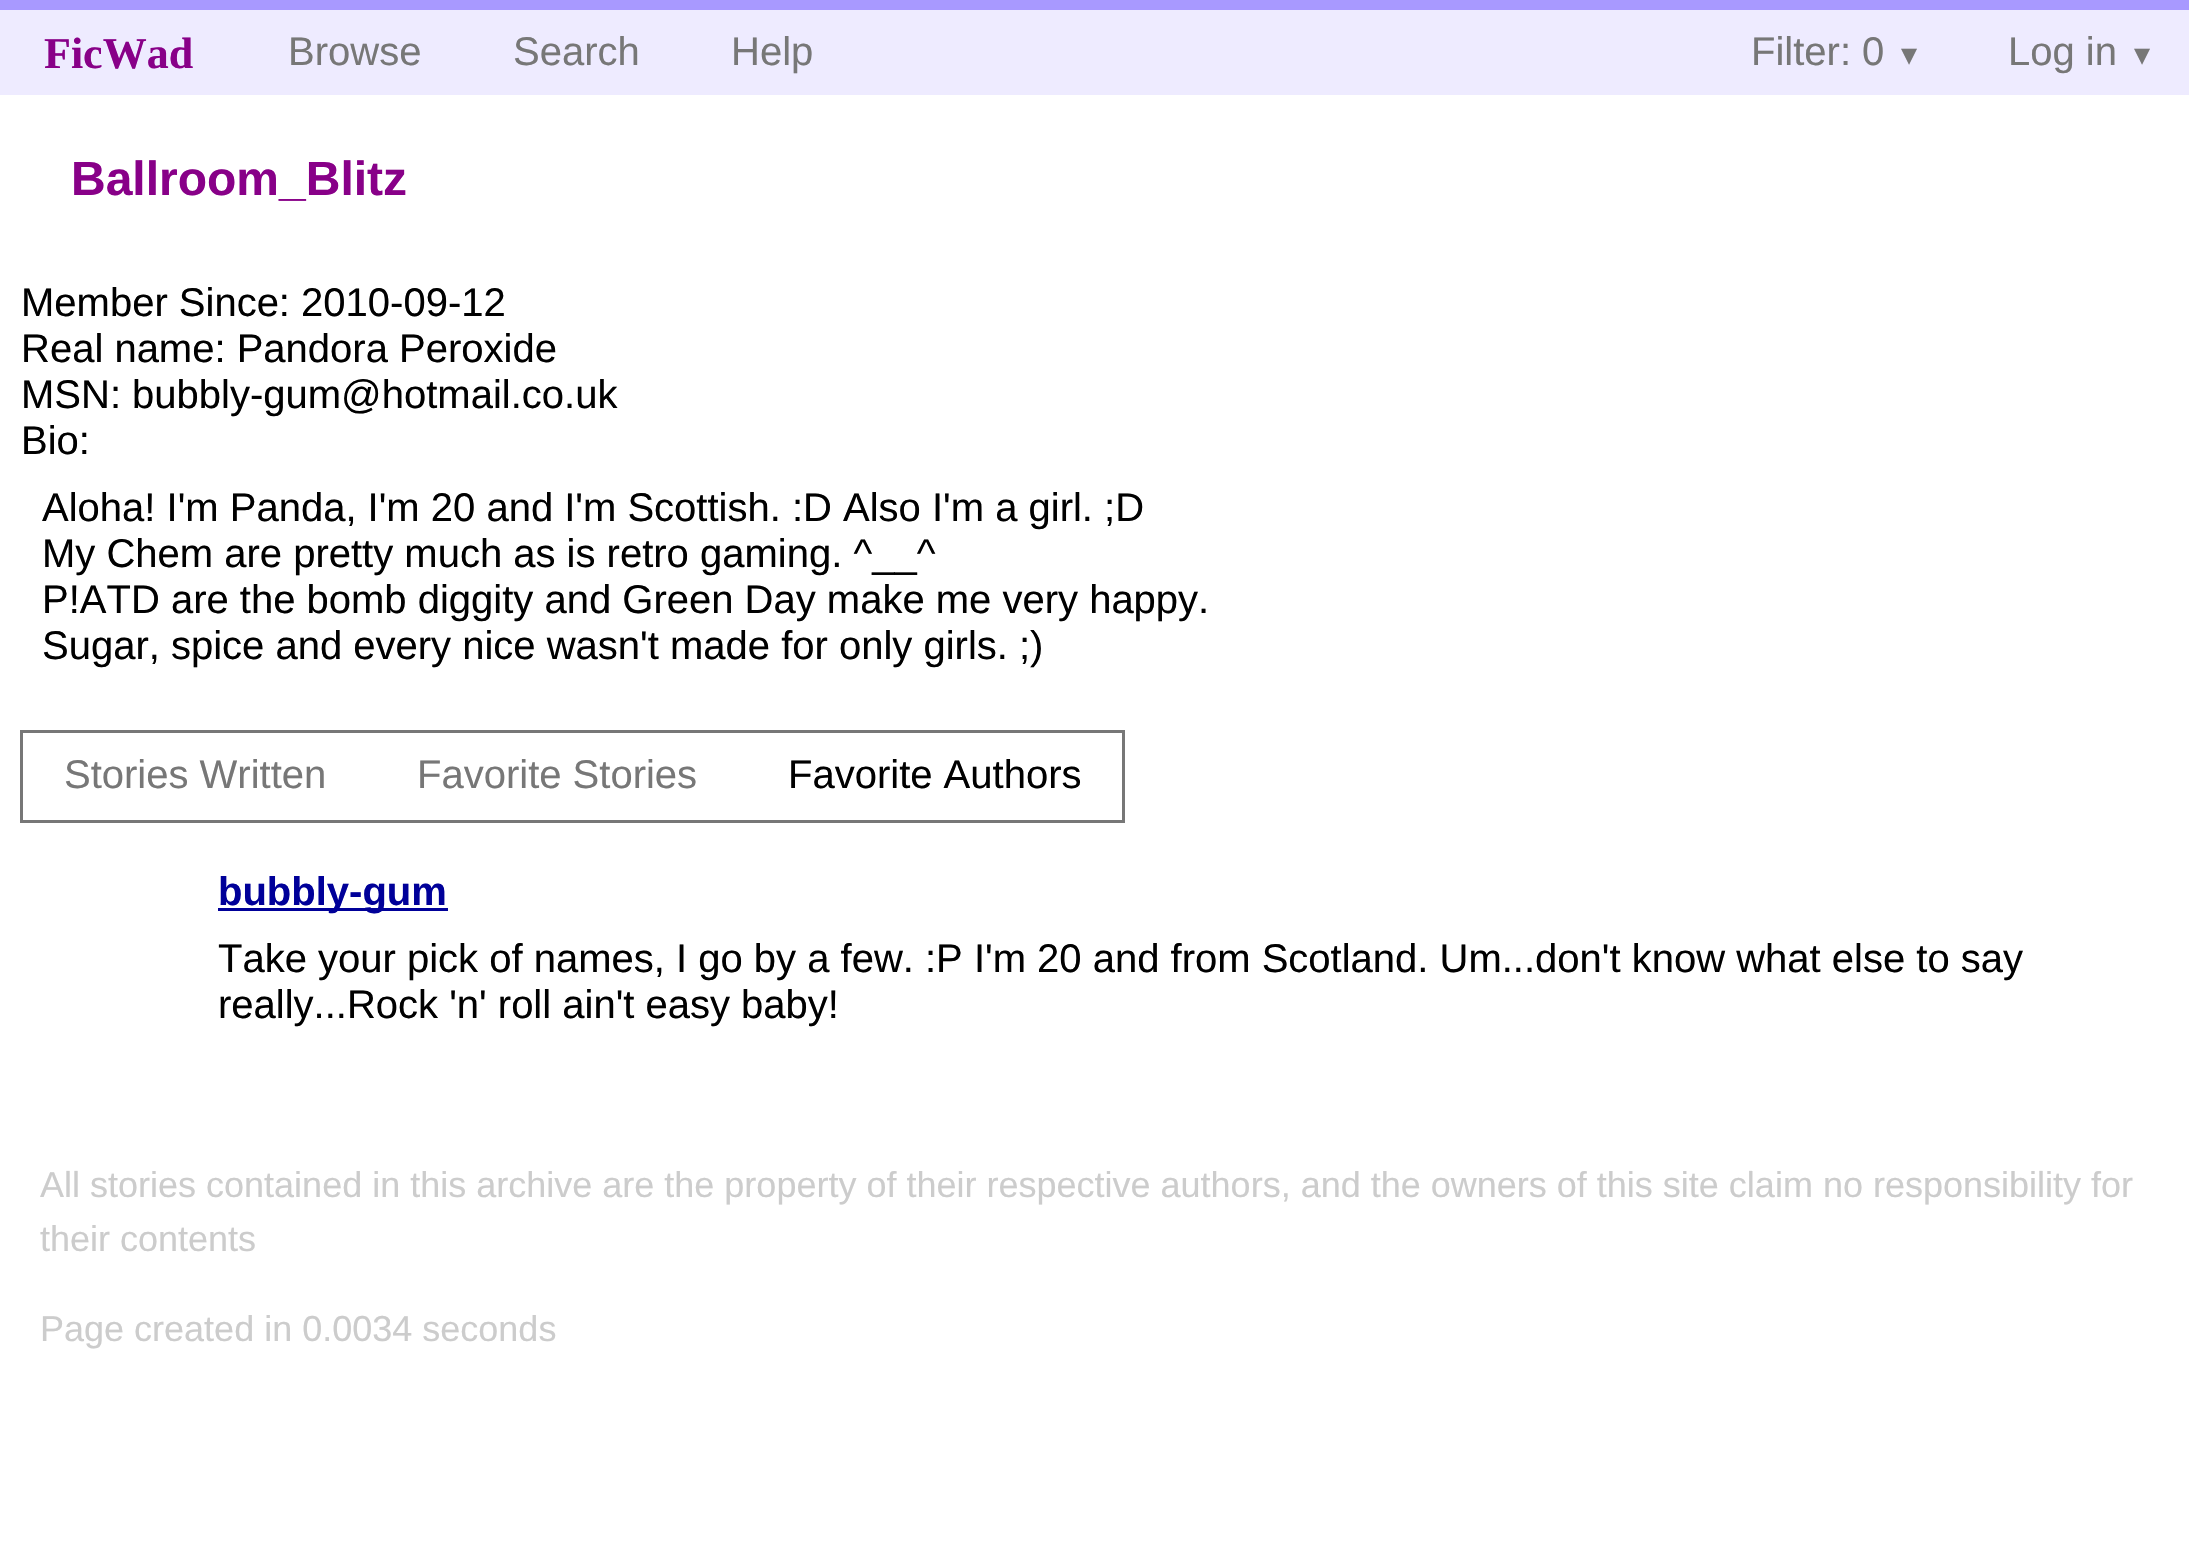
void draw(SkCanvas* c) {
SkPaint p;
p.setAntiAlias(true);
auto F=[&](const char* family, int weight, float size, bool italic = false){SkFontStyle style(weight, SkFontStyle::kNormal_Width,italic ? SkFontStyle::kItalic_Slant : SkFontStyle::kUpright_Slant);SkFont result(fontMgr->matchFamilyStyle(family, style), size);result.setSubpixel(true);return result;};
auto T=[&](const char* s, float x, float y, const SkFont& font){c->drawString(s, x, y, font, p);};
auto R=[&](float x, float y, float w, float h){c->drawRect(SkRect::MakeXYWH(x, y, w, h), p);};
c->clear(0xffffffff);
p.setColor(0xffeeebff);
R(0,10,2189,85);
p.setColor(0xffa899ff);
R(0,0,2189,10);
auto f1 = F("Liberation Serif",700,44);
p.setColor(0xff880088);
T("FicWad",44,68,f1);
auto f2 = F("Liberation Sans",400,40);
p.setColor(0xff777777);
T("Browse",288,65,f2);
T("Search",513,65,f2);
T("Help",731,65,f2);
T("Filter: 0",1751,65,f2);
auto f3 = F("DejaVu Sans",400,32);
T("▾",1901,65,f3);
T("Log in",2008,65,f2);
T("▾",2134,65,f3);
auto f4 = F("Liberation Sans",700,48);
p.setColor(0xff880088);
T("Ballroom_Blitz",71,195,f4);
p.setColor(0xff000000);
T("Member Since: 2010-09-12",21,316,f2);
T("Real name: Pandora Peroxide",21,362,f2);
T("MSN: bubbly-gum@hotmail.co.uk",21,408,f2);
T("Bio:",21,454,f2);
T("Aloha! I'm Panda, I'm 20 and I'm Scottish. :D Also I'm a girl. ;D",42,521,f2);
T("My Chem are pretty much as is retro gaming. ^__^",42,567,f2);
T("P!ATD are the bomb diggity and Green Day make me very happy.",42,613,f2);
T("Sugar, spice and every nice wasn't made for only girls. ;)",42,659,f2);
p.setStroke(true);
p.setStrokeWidth(3);
p.setColor(0xff777777);
c->drawRect(SkRect::MakeXYWH(21.5,731.5,1102,90),p);
p.setStroke(false);
T("Stories Written",64,788,f2);
T("Favorite Stories",417,788,f2);
p.setColor(0xff000000);
T("Favorite Authors",788,788,f2);
p.setColor(0xff000099);
R(218,908,230,3);
auto f5 = F("Liberation Sans",700,40);
T("bubbly-gum",218,905,f5);
p.setColor(0xff000000);
T("Take your pick of names, I go by a few. :P I'm 20 and from Scotland. Um...don't know what else to say",218,972,f2);
T("really...Rock 'n' roll ain't easy baby!",218,1018,f2);
auto f6 = F("Liberation Sans",400,36);
p.setColor(0xffcccccc);
T("All stories contained in this archive are the property of their respective authors, and the owners of this site claim no responsibility for",40,1197,f6);
T("their contents",40,1251,f6);
T("Page created in 0.0034 seconds",40,1341,f6);
}
